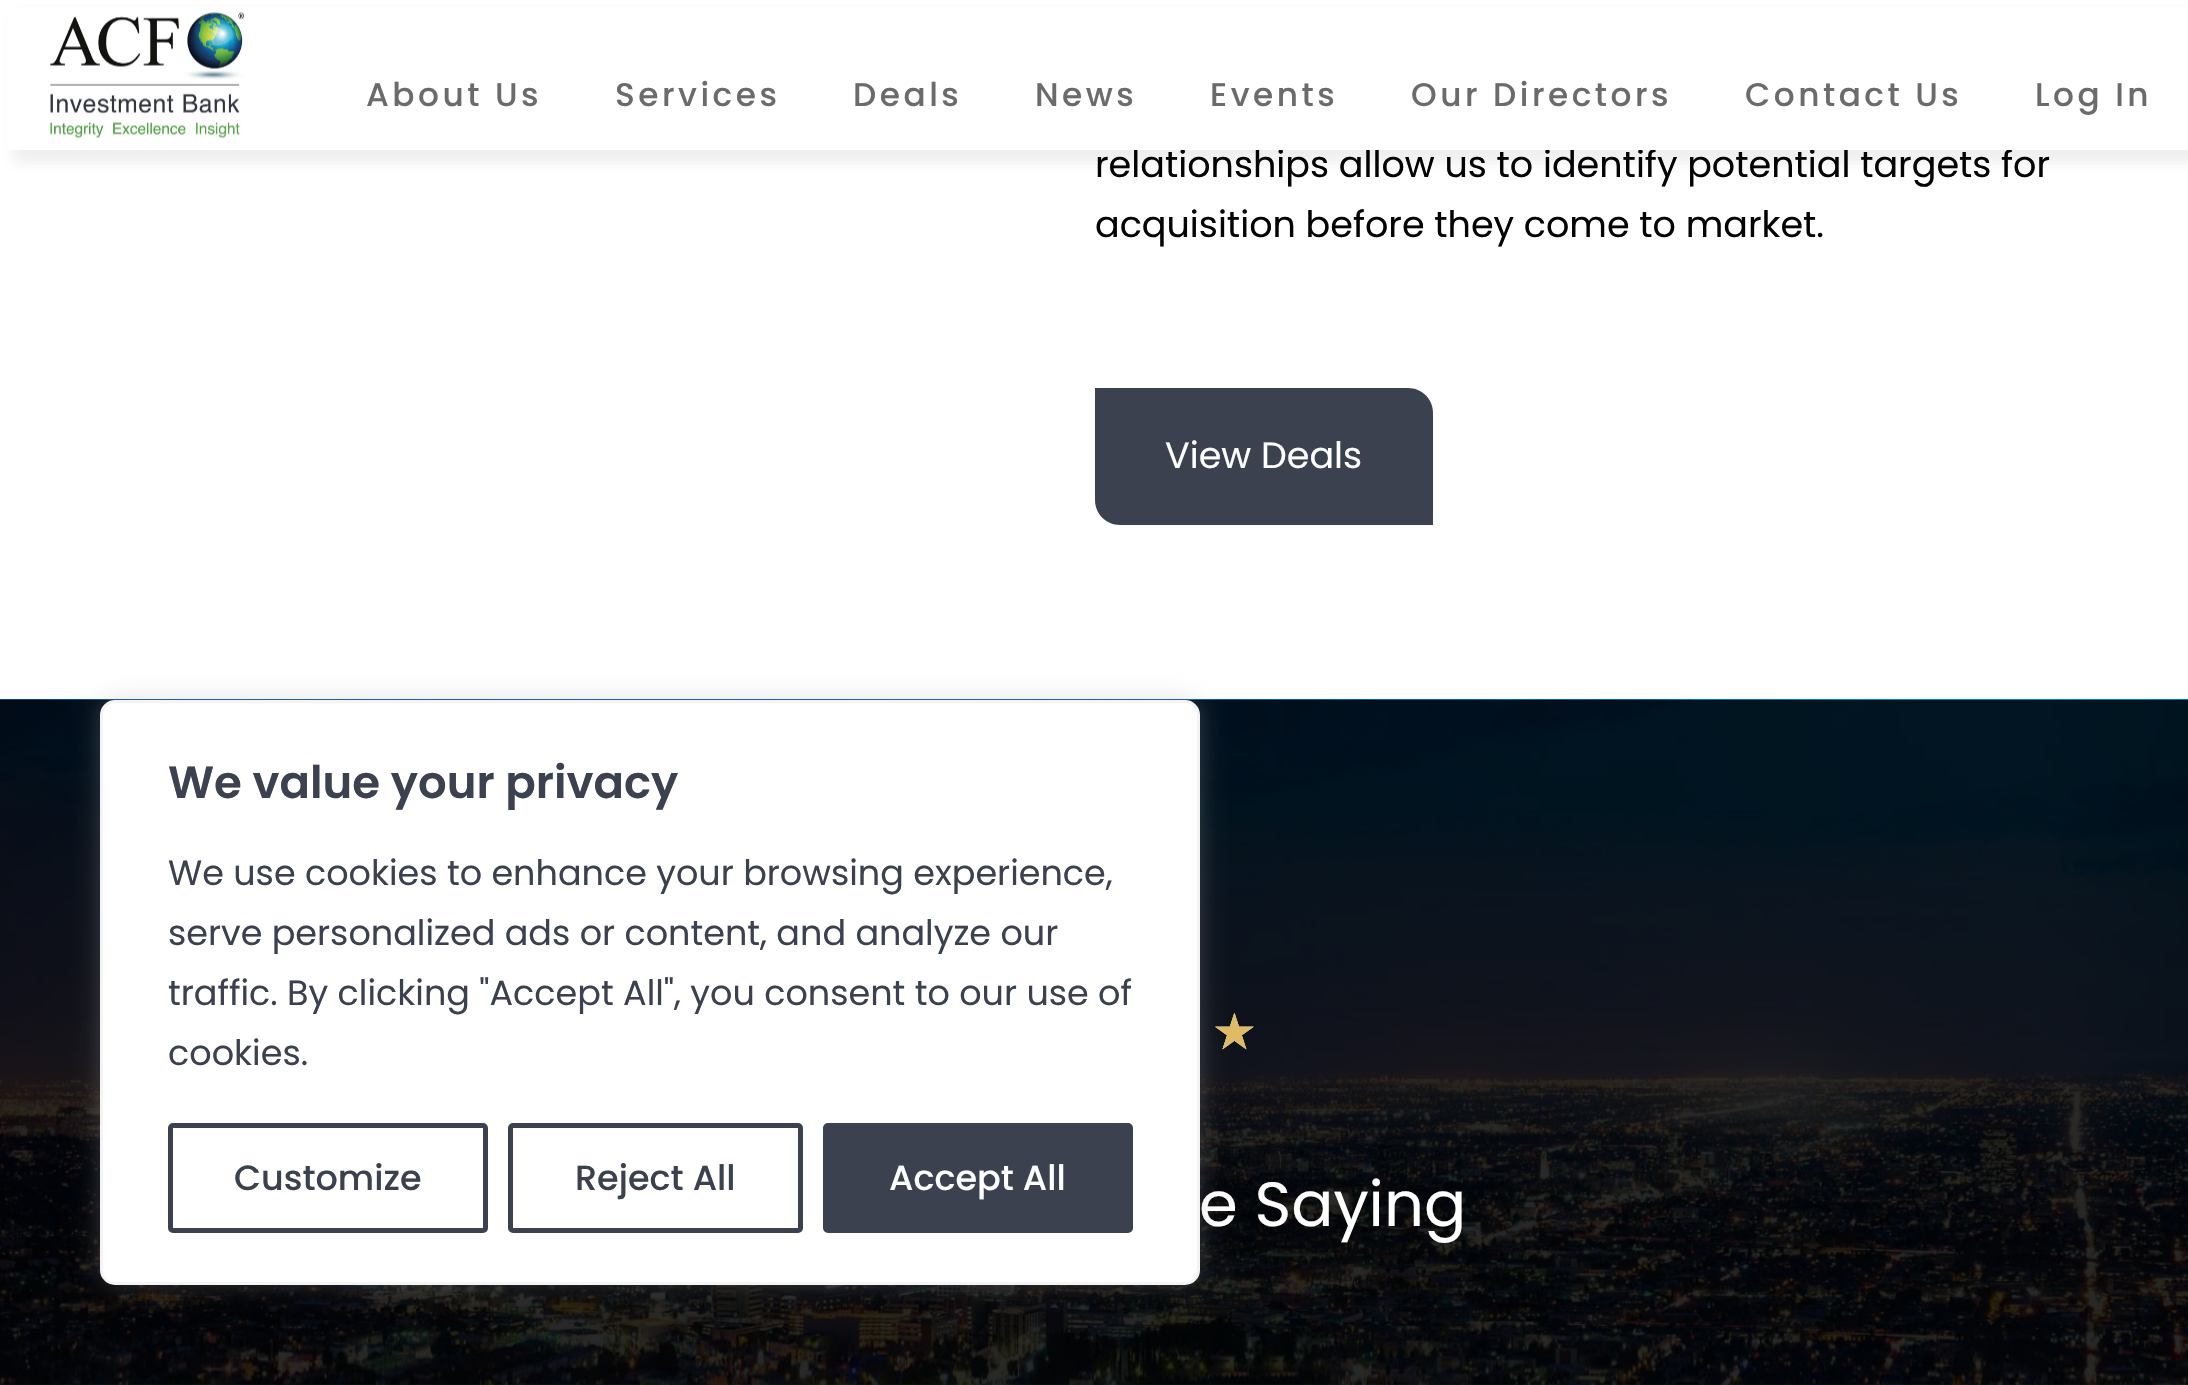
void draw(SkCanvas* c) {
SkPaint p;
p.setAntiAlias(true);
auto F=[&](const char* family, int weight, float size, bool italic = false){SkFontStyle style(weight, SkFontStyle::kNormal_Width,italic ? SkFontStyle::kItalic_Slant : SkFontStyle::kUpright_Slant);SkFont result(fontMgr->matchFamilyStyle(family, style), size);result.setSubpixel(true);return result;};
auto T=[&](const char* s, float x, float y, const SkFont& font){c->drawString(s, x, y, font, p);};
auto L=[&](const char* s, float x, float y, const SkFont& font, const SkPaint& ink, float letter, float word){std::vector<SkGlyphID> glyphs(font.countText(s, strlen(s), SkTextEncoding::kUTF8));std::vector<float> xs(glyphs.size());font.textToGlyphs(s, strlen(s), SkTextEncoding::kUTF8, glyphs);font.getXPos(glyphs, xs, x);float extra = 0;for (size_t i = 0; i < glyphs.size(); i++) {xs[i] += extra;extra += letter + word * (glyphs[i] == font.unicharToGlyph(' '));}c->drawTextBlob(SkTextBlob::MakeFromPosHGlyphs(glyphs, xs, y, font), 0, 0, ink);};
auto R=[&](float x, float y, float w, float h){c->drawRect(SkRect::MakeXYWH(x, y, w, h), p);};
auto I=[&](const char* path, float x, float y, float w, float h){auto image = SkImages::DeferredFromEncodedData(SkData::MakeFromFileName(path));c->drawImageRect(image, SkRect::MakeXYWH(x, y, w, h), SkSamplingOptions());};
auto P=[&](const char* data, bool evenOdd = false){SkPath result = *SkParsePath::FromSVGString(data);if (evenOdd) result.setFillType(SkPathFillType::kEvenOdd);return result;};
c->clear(0xffffffff);
p.setColor(0x14323443);
p.setMaskFilter(SkMaskFilter::MakeBlur(kNormal_SkBlurStyle, 6));
c->drawRect(SkRect::MakeXYWH(13,13,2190,150),p);
p.setMaskFilter(nullptr);
auto f1 = F("Poppins",400,36.5);
p.setColor(0xff030305);
T("relationships allow us to identify potential targets for",1095,177,f1);
p.setColor(0xffffffff);
R(7,7,2181,143);
I("1.png",50,12,195,126);
auto f2 = F("Poppins",500,32.75);
p.setColor(0xff6b6b6b);
L("About Us",366,106,f2,p,3.5,0);
L("Services",615,106,f2,p,3.5,0);
L("Deals",853,106,f2,p,3.5,0);
L("News",1035,106,f2,p,3.5,0);
L("Events",1210,106,f2,p,3.5,0);
L("Our Directors",1411,106,f2,p,3.5,0);
L("Contact Us",1745,106,f2,p,3.5,0);
L("Log In",2035,106,f2,p,3.5,0);
p.setColor(0xff030305);
T("acquisition before they come to market.",1095,237,f1);
p.setColor(0xff3c4150);
c->drawPath(P("M1095 388h313c14 0 25 11 25 25v112h-313c-14 0-25-11-25-25z"),p);
p.setColor(0xffffffff);
T("View Deals",1165,468,f1);
I("2.png",0,699,2188,686);
{
const SkColor colors[] = {0x00000000,0xd6000000};
const float stops[] = {.28,.66};
const SkPoint ends[] = {{1095,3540}, {1095,700}};
p.setShader(SkGradientShader::MakeLinear(ends, colors, stops, 2, SkTileMode::kClamp));
p.setAlpha(255);
}
R(0,700,2188,685);
auto f3 = F("DejaVu Sans",400,50);
p.setShader(nullptr);
p.setColor(0xffefecdc);
T("★",1212,1049,f3);
p.setColor(0xffdfbb66);
T("★",1212,1049,f3);
auto f4 = F("Poppins",400,62.5);
p.setColor(0xffffffff);
T("e Saying",1199,1226,f4);
p.setColor(0x4dacabab);
p.setMaskFilter(SkMaskFilter::MakeBlur(kNormal_SkBlurStyle, 12.5));
c->drawRoundRect(SkRect::MakeXYWH(100,698,1100,585),15,15,p);
p.setMaskFilter(nullptr);
p.setColor(0xffffffff);
c->drawRoundRect(SkRect::MakeXYWH(101.5,701.5,1097,582),13.5,13.5,p);
p.setStroke(true);
p.setStrokeWidth(3);
p.setColor(0xfff4f4f4);
c->drawRoundRect(SkRect::MakeXYWH(101.5,701.5,1097,582),13.5,13.5,p);
auto f5 = F("Poppins",600,45);
p.setStroke(false);
p.setColor(0xff3c4150);
T("We value your privacy",168,798,f5);
auto f6 = F("Poppins",400,35);
T("We use cookies to enhance your browsing experience,",168,885,f6);
T("serve personalized ads or content, and analyze our",168,945,f6);
T("traffic. By clicking \"Accept All\", you consent to our use of",168,1005,f6);
T("cookies.",168,1065,f6);
p.setStroke(true);
p.setStrokeWidth(5);
c->drawRoundRect(SkRect::MakeXYWH(170.5,1125.5,315,105),2.5,2.5,p);
auto f7 = F("Poppins",500,35);
p.setStroke(false);
T("Customize",234,1190,f7);
p.setStroke(true);
c->drawRoundRect(SkRect::MakeXYWH(510.5,1125.5,290,105),2.5,2.5,p);
p.setStroke(false);
T("Reject All",575,1190,f7);
c->drawRoundRect(SkRect::MakeXYWH(825.5,1125.5,305,105),2.5,2.5,p);
p.setStroke(true);
c->drawRoundRect(SkRect::MakeXYWH(825.5,1125.5,305,105),2.5,2.5,p);
p.setStroke(false);
p.setColor(0xffffffff);
T("Accept All",889,1190,f7);
}
